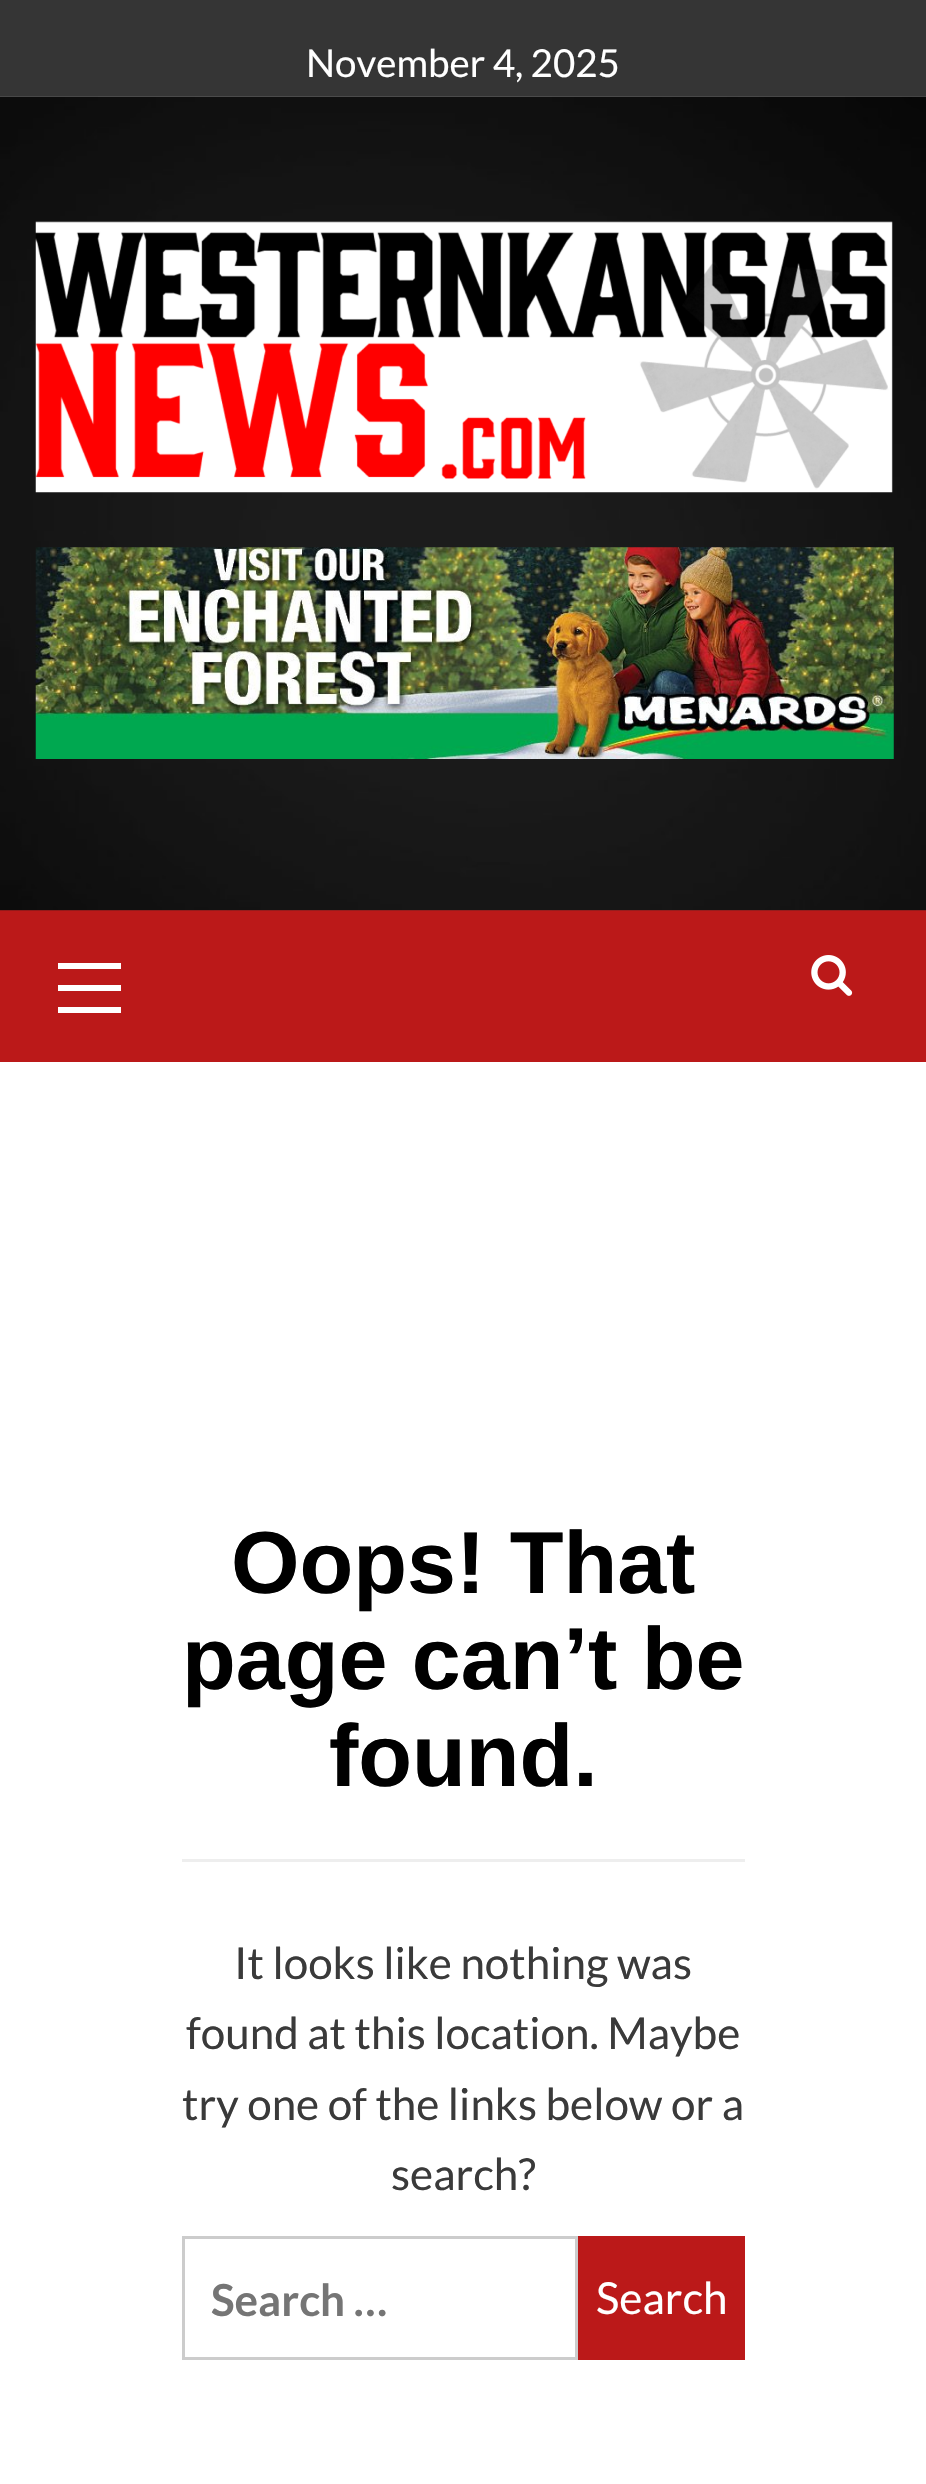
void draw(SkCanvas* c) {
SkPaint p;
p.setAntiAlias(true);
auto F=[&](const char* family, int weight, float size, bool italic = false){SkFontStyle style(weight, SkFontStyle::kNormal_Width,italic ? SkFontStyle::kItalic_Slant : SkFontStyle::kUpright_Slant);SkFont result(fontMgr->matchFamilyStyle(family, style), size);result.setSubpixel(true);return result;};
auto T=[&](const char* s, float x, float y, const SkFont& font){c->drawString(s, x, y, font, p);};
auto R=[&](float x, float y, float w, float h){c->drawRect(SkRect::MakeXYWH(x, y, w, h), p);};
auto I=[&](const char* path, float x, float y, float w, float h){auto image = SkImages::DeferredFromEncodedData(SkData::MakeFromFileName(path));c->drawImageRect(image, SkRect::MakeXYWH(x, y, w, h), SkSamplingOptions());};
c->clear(0xffffffff);
p.setColor(0xff353535);
R(0,0,926,96);
auto f1 = F("Lato",400,38.5);
p.setColor(0xffffffff);
T("November 4, 2025",306,77,f1);
p.setColor(0xffbb1919);
R(0,910,926,152);
I("1.png",0,96,926,815);
I("2.png",35,221,858,272);
I("3.png",35,547,859,212);
p.setColor(0xffffffff);
R(58,985,63,6);
R(58,963,63,6);
R(58,1007,63,6);
I("4.png",811,955,42,41);
p.setColor(0xffeeeeee);
R(182,1859,563,3);
auto f2 = F("Liberation Sans",700,88);
p.setColor(0xff000000);
T("Oops! That",231,1593,f2);
T("page can’t be",182,1689,f2);
T("found.",329,1786,f2);
auto f3 = F("Lato",400,44);
p.setColor(0xff3a3a3a);
T("It looks like nothing was",234,1979,f3);
T("found at this location. Maybe",186,2049,f3);
T("try one of the links below or a",182,2120,f3);
T("search?",391,2190,f3);
p.setStroke(true);
p.setStrokeWidth(3);
p.setColor(0xffcccccc);
c->drawRect(SkRect::MakeXYWH(183.5,2237.5,393,121),p);
auto f4 = F("Lato",700,44);
p.setStroke(false);
p.setColor(0xff757575);
T("Search …",211,2316,f4);
p.setColor(0xffbb1919);
R(578,2236,167,124);
p.setColor(0xffffffff);
T("Search",596,2314,f3);
}
